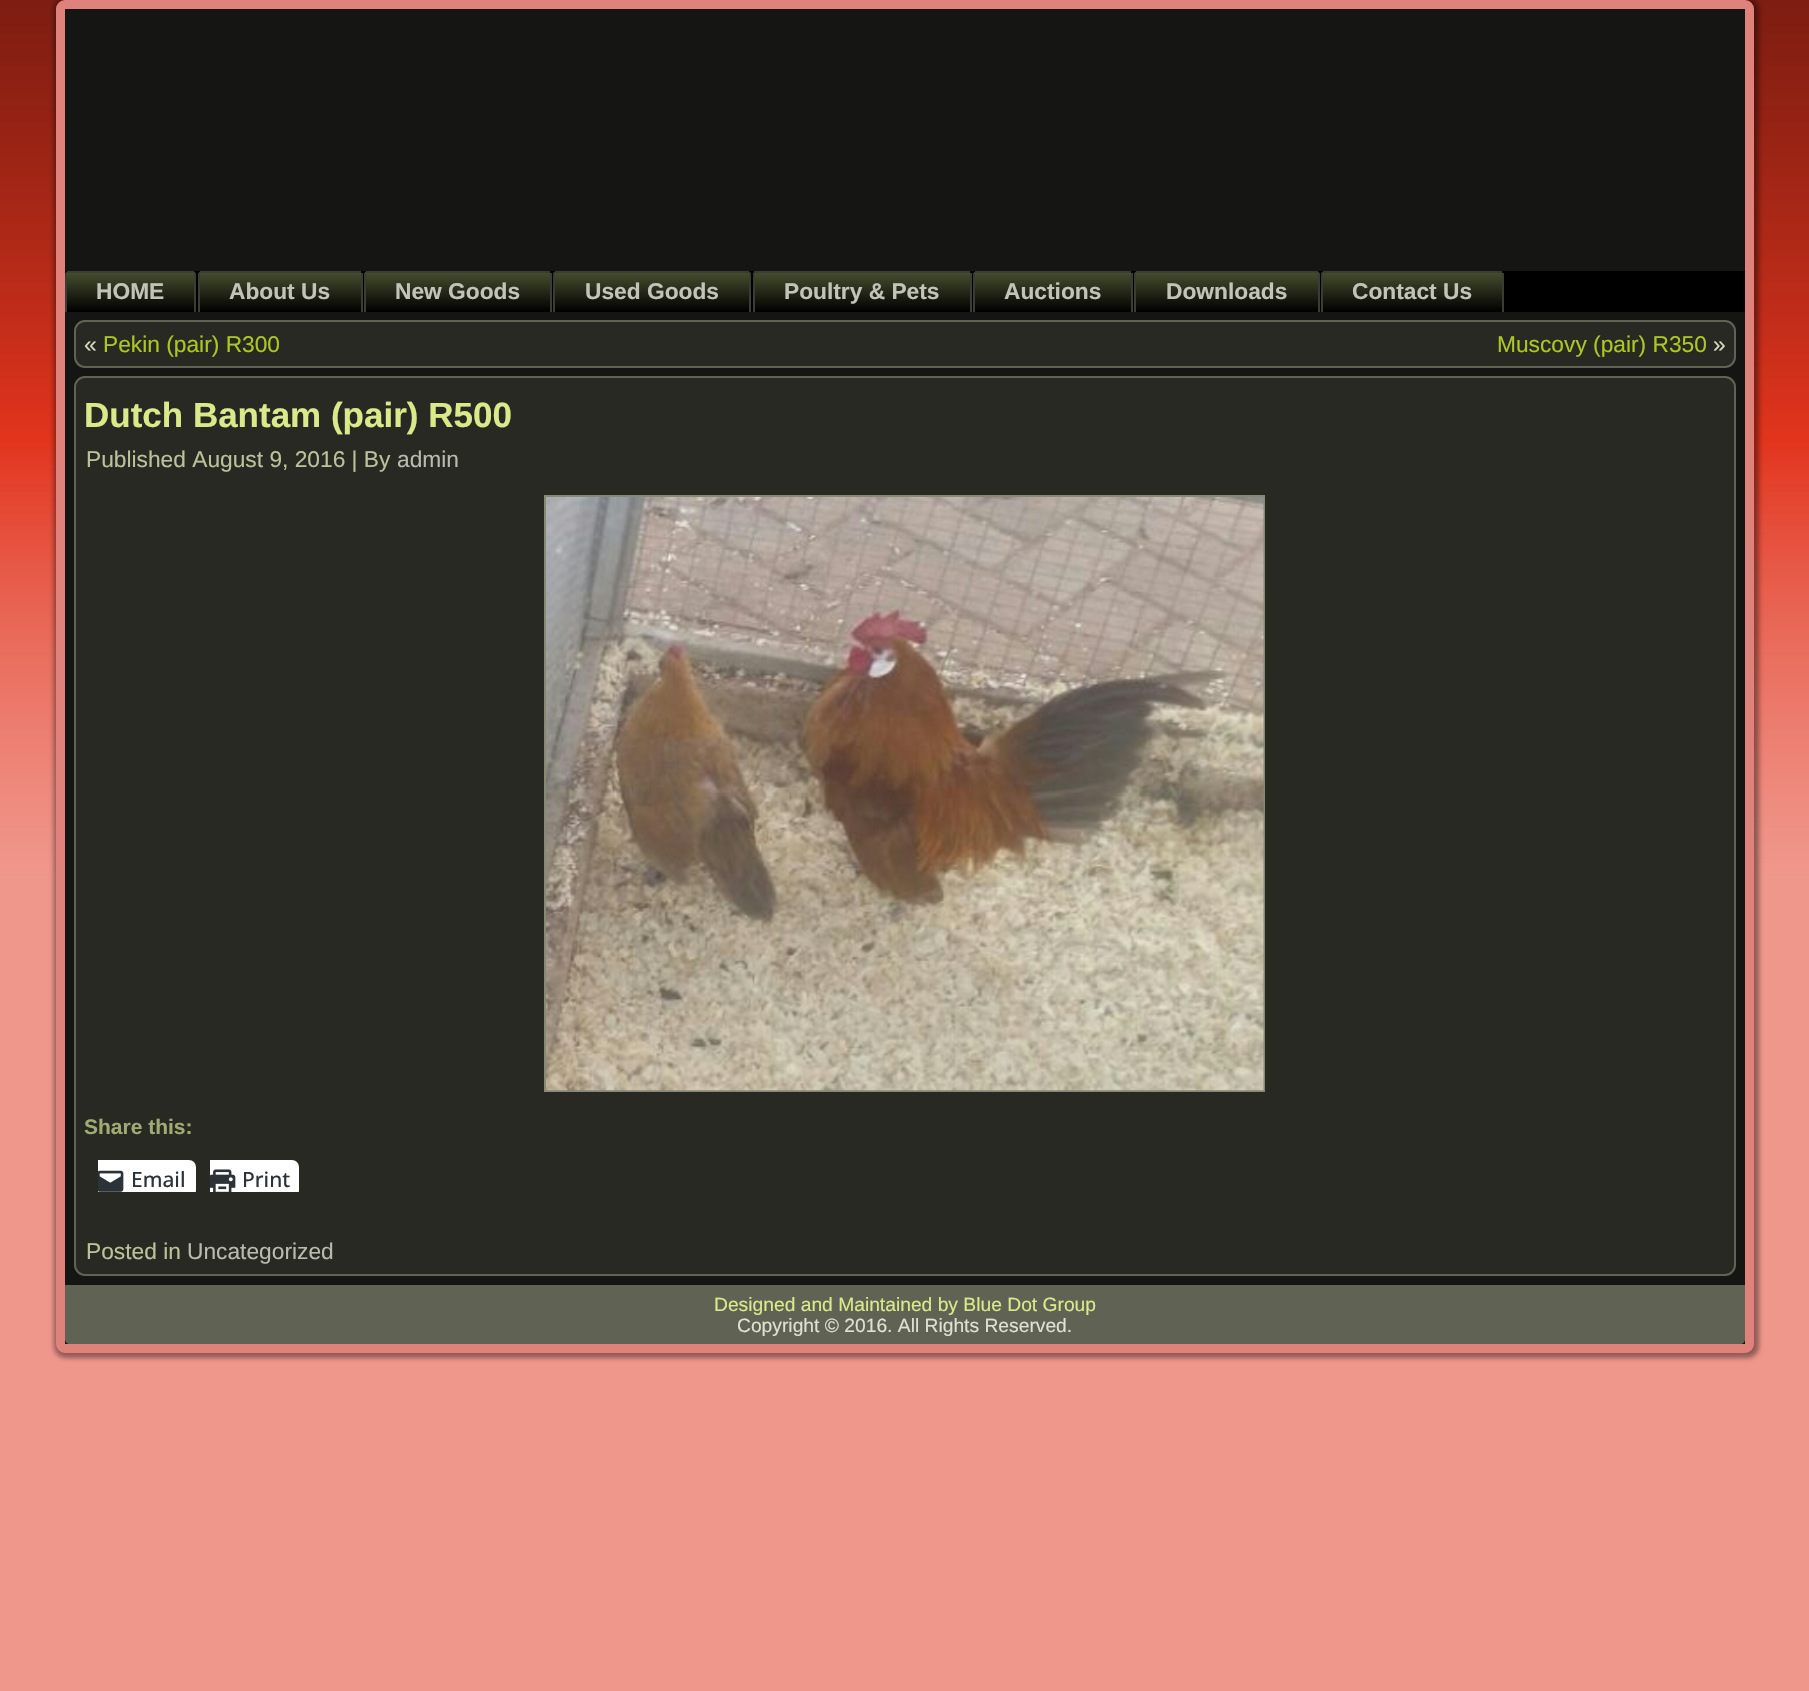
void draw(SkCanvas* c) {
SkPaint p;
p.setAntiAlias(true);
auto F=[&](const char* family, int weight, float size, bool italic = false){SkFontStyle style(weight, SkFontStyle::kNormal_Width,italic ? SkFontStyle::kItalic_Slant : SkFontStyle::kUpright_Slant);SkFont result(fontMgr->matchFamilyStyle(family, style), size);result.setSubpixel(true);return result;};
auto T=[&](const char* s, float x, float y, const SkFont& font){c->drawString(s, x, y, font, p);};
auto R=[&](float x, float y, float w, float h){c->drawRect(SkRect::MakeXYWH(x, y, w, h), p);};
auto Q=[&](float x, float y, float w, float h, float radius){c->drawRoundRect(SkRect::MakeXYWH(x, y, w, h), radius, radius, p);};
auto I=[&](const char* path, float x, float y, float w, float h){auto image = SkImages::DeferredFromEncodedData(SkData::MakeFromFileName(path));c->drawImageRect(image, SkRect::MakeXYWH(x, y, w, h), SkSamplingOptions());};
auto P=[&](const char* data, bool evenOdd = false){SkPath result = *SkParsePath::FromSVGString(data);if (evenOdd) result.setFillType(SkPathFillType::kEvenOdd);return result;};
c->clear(0xffffffff);
{
const SkColor colors[] = {0xff871f12,0xffe2341d,0xffed8578};
const float stops[] = {0,.26,.52};
const SkPoint ends[] = {{905,0}, {905,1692}};
p.setShader(SkGradientShader::MakeLinear(ends, colors, stops, 3, SkTileMode::kClamp));
p.setAlpha(255);
}
R(0,0,1809,1691);
{
const SkColor colors[] = {0x385a150c,0x005a150c,0x00f3aea5,0x73f3aea5};
const float stops[] = {0,.26,.26,.52};
const SkPoint ends[] = {{905,0}, {905,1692}};
p.setShader(SkGradientShader::MakeLinear(ends, colors, stops, 4, SkTileMode::kClamp));
p.setAlpha(255);
}
R(0,0,1809,1691);
p.setShader(nullptr);
p.setColor(0x66000000);
p.setMaskFilter(SkMaskFilter::MakeBlur(kNormal_SkBlurStyle, 2.5));
c->drawRoundRect(SkRect::MakeXYWH(54,-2,1705,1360),12,12,p);
p.setMaskFilter(nullptr);
p.setColor(0xff151613);
c->drawRoundRect(SkRect::MakeXYWH(60.5,4.5,1689,1344),4.5,4.5,p);
p.setStroke(true);
p.setStrokeWidth(9);
p.setColor(0xffdf827c);
c->drawRoundRect(SkRect::MakeXYWH(60.5,4.5,1689,1344),4.5,4.5,p);
p.setStroke(false);
p.setColor(0xff000000);
R(65,271,1680,41);
{
const SkColor colors[] = {0xff495030,0xff000000};
const float stops[] = {0,1};
const SkPoint ends[] = {{130,271}, {130,312}};
p.setShader(SkGradientShader::MakeLinear(ends, colors, stops, 2, SkTileMode::kClamp));
p.setAlpha(255);
}
c->drawPath(P("M69 271h123c2 0 4 2 4 4v37h-131v-37c0-2 2-4 4-4z"),p);
p.setShader(nullptr);
p.setColor(0xff3b3d34);
R(67,271,127,2);
R(194,273,2,39);
R(65,273,2,39);
auto f1 = F("Liberation Sans",700,22.75);
p.setColor(0xffc2c4ba);
T("HOME",96,299,f1);
{
const SkColor colors[] = {0xff495030,0xff000000};
const float stops[] = {0,1};
const SkPoint ends[] = {{280,271}, {280,312}};
p.setShader(SkGradientShader::MakeLinear(ends, colors, stops, 2, SkTileMode::kClamp));
p.setAlpha(255);
}
c->drawPath(P("M202 271h156c2 0 4 2 4 4v37h-164v-37c0-2 2-4 4-4z"),p);
p.setShader(nullptr);
p.setColor(0xff3b3d34);
R(200,271,161,2);
R(361,273,2,39);
R(198,273,2,39);
p.setColor(0xffc2c4ba);
T("About Us",229,299,f1);
{
const SkColor colors[] = {0xff495030,0xff000000};
const float stops[] = {0,1};
const SkPoint ends[] = {{458,271}, {458,312}};
p.setShader(SkGradientShader::MakeLinear(ends, colors, stops, 2, SkTileMode::kClamp));
p.setAlpha(255);
}
c->drawPath(P("M368 271h179c2 0 4 2 4 4v37h-187v-37c0-2 2-4 4-4z"),p);
p.setShader(nullptr);
p.setColor(0xff3b3d34);
R(366,271,184,2);
R(550,273,2,39);
R(364,273,2,39);
p.setColor(0xffc2c4ba);
T("New Goods",395,299,f1);
{
const SkColor colors[] = {0xff495030,0xff000000};
const float stops[] = {0,1};
const SkPoint ends[] = {{652,271}, {652,312}};
p.setShader(SkGradientShader::MakeLinear(ends, colors, stops, 2, SkTileMode::kClamp));
p.setAlpha(255);
}
c->drawPath(P("M557 271h190c2 0 4 2 4 4v37h-198v-37c0-2 2-4 4-4z"),p);
p.setShader(nullptr);
p.setColor(0xff3b3d34);
R(555,271,194,2);
R(749,273,2,39);
R(553,273,2,39);
p.setColor(0xffc2c4ba);
T("Used Goods",585,299,f1);
{
const SkColor colors[] = {0xff495030,0xff000000};
const float stops[] = {0,1};
const SkPoint ends[] = {{862,271}, {862,312}};
p.setShader(SkGradientShader::MakeLinear(ends, colors, stops, 2, SkTileMode::kClamp));
p.setAlpha(255);
}
c->drawPath(P("M757 271h210c2 0 4 2 4 4v37h-218v-37c0-2 2-4 4-4z"),p);
p.setShader(nullptr);
p.setColor(0xff3b3d34);
R(754,271,216,2);
R(970,273,2,39);
R(753,273,2,39);
p.setColor(0xffc2c4ba);
T("Poultry & Pets",784,299,f1);
{
const SkColor colors[] = {0xff495030,0xff000000};
const float stops[] = {0,1};
const SkPoint ends[] = {{1053,271}, {1053,312}};
p.setShader(SkGradientShader::MakeLinear(ends, colors, stops, 2, SkTileMode::kClamp));
p.setAlpha(255);
}
c->drawPath(P("M977 271h151c2 0 4 2 4 4v37h-159v-37c0-2 2-4 4-4z"),p);
p.setShader(nullptr);
p.setColor(0xff3b3d34);
R(975,271,156,2);
R(1131,273,2,39);
R(973,273,2,39);
p.setColor(0xffc2c4ba);
T("Auctions",1004,299,f1);
{
const SkColor colors[] = {0xff495030,0xff000000};
const float stops[] = {0,1};
const SkPoint ends[] = {{1227,271}, {1227,312}};
p.setShader(SkGradientShader::MakeLinear(ends, colors, stops, 2, SkTileMode::kClamp));
p.setAlpha(255);
}
c->drawPath(P("M1138 271h178c2 0 4 2 4 4v37h-186v-37c0-2 2-4 4-4z"),p);
p.setShader(nullptr);
p.setColor(0xff3b3d34);
R(1136,271,182,2);
R(1318,273,2,39);
R(1134,273,2,39);
p.setColor(0xffc2c4ba);
T("Downloads",1166,299,f1);
{
const SkColor colors[] = {0xff495030,0xff000000};
const float stops[] = {0,1};
const SkPoint ends[] = {{1412,271}, {1412,312}};
p.setShader(SkGradientShader::MakeLinear(ends, colors, stops, 2, SkTileMode::kClamp));
p.setAlpha(255);
}
c->drawPath(P("M1325 271h174c2 0 4 2 4 4v37h-182v-37c0-2 2-4 4-4z"),p);
p.setShader(nullptr);
p.setColor(0xff3b3d34);
R(1323,271,179,2);
R(1502,273,2,39);
R(1321,273,2,39);
p.setColor(0xffc2c4ba);
T("Contact Us",1352,299,f1);
p.setColor(0xff282923);
c->drawRoundRect(SkRect::MakeXYWH(75,321,1660,46),10,10,p);
p.setStroke(true);
p.setStrokeWidth(2);
p.setColor(0xff606354);
c->drawRoundRect(SkRect::MakeXYWH(75,321,1660,46),10,10,p);
auto f2 = F("Liberation Sans",400,22.75);
p.setStroke(false);
p.setColor(0xffd4d9bf);
T("«",84,352,f2);
p.setColor(0xffacc723);
T("Pekin (pair) R300",103,352,f2);
T("Muscovy (pair) R350",1497,352,f2);
p.setColor(0xffd4d9bf);
T("»",1713,352,f2);
p.setColor(0xff282923);
c->drawRoundRect(SkRect::MakeXYWH(75,377,1660,898),10,10,p);
p.setStroke(true);
p.setColor(0xff606354);
c->drawRoundRect(SkRect::MakeXYWH(75,377,1660,898),10,10,p);
auto f3 = F("Liberation Sans",700,35);
p.setStroke(false);
p.setColor(0xffdaea8a);
T("Dutch Bantam (pair) R500",84,427,f3);
p.setColor(0xffbac299);
T("Published August 9, 2016 | By",86,467,f2);
p.setColor(0xffb9bbaf);
T("admin",397,467,f2);
p.setStroke(true);
p.setColor(0xff868a75);
c->drawRect(SkRect::MakeXYWH(545,496,719,595),p);
I("1.png",546,497,718,594);
auto f4 = F("Liberation Sans",700,21);
p.setStroke(false);
p.setColor(0xffa0ab73);
T("Share this:",84,1134,f4);
c->save();
c->clipRect(SkRect::MakeXYWH(98,1160,98,32));
p.setStroke(true);
p.setColor(0xff23241f);
c->drawRoundRect(SkRect::MakeXYWH(85,1160,112,38),8,8,p);
p.setStroke(false);
p.setColor(0xffffffff);
Q(86,1160,110,37,7);
c->restore();
I("2.png",98,1170,26,22);
auto f5 = F("Open Sans",500,21);
p.setColor(0xff2c3338);
T("Email",131,1187,f5);
c->save();
c->clipRect(SkRect::MakeXYWH(210,1160,89,32));
p.setStroke(true);
p.setColor(0xff23241f);
c->drawRoundRect(SkRect::MakeXYWH(197,1160,103,38),8,8,p);
p.setStroke(false);
p.setColor(0xffffffff);
Q(198,1160,101,37,7);
c->restore();
I("3.png",210,1169,26,23);
p.setColor(0xff2c3338);
T("Print",242,1187,f5);
p.setColor(0xffbac299);
T("Posted in",86,1259,f2);
p.setColor(0xffb9bbaf);
T("Uncategorized",187,1259,f2);
p.setColor(0xff606354);
c->drawPath(P("M65 1285h1680v54c0 3-2 5-5 5h-1670c-3 0-5-2-5-5z"),p);
auto f6 = F("Liberation Sans",400,19.25);
p.setColor(0xffdaea8a);
T("Designed and Maintained by Blue Dot Group",714,1311,f6);
p.setColor(0xffdee2cf);
T("Copyright © 2016. All Rights Reserved.",737,1332,f6);
}
